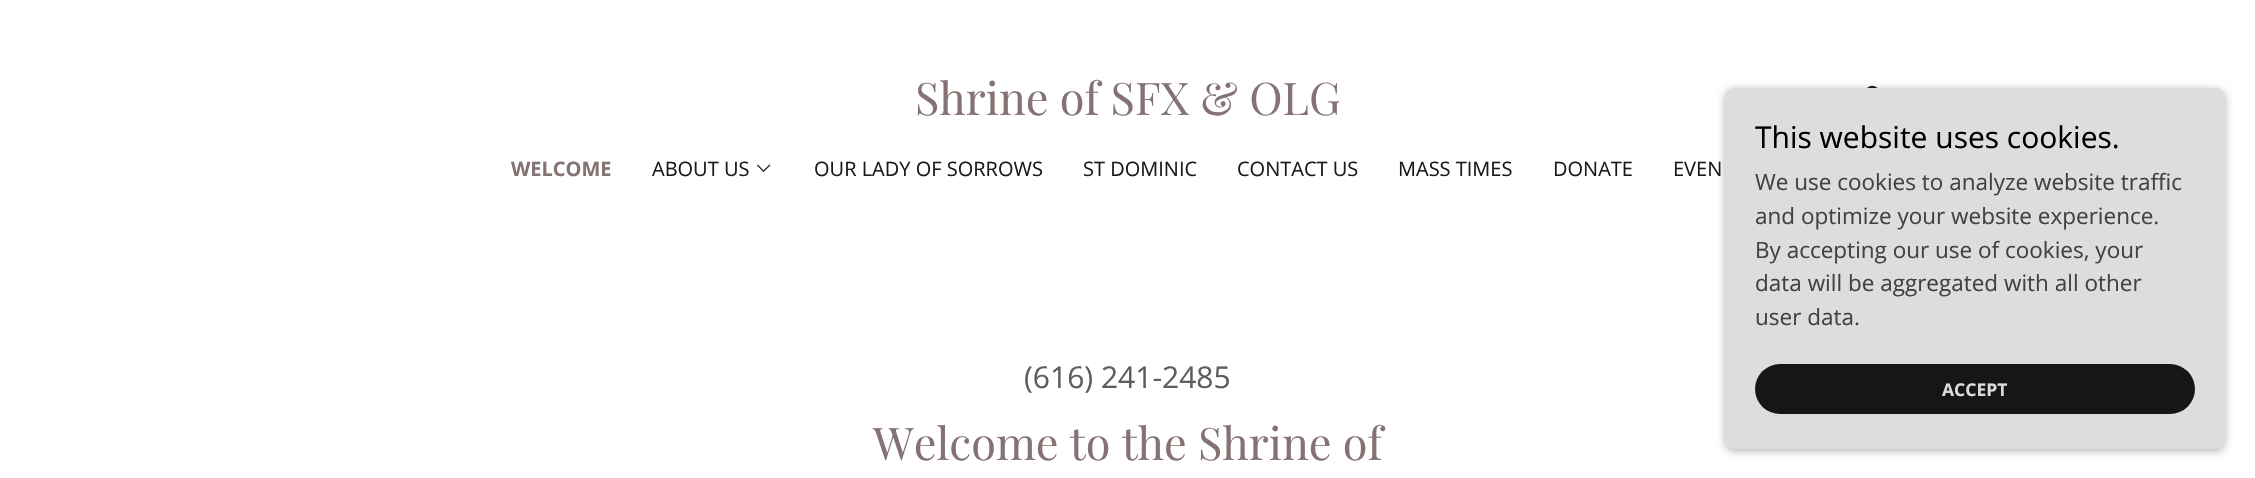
void draw(SkCanvas* c) {
SkPaint p;
p.setAntiAlias(true);
auto F=[&](const char* family, int weight, float size, bool italic = false){SkFontStyle style(weight, SkFontStyle::kNormal_Width,italic ? SkFontStyle::kItalic_Slant : SkFontStyle::kUpright_Slant);SkFont result(fontMgr->matchFamilyStyle(family, style), size);result.setSubpixel(true);return result;};
auto T=[&](const char* s, float x, float y, const SkFont& font){c->drawString(s, x, y, font, p);};
auto Q=[&](float x, float y, float w, float h, float radius){c->drawRoundRect(SkRect::MakeXYWH(x, y, w, h), radius, radius, p);};
auto I=[&](const char* path, float x, float y, float w, float h){auto image = SkImages::DeferredFromEncodedData(SkData::MakeFromFileName(path));c->drawImageRect(image, SkRect::MakeXYWH(x, y, w, h), SkSamplingOptions());};
c->clear(0xffffffff);
auto f1 = F("Playfair Display",400,45);
p.setColor(0xff857272);
T("Shrine of SFX & OLG",915,115,f1);
I("1.png",1867,85,11,3);
auto f2 = F("Open Sans",700,20);
T("WELCOME",511,176,f2);
auto f3 = F("Open Sans",400,20);
p.setColor(0xff1b1b1b);
T("ABOUT US",652,176,f3);
I("2.png",757,164,14,8);
T("OUR LADY OF SORROWS",814,176,f3);
T("ST DOMINIC",1083,176,f3);
T("CONTACT US",1237,176,f3);
T("MASS TIMES",1398,176,f3);
T("DONATE",1553,176,f3);
T("EVEN",1673,176,f3);
auto f4 = F("Open Sans",400,30);
p.setColor(0xff5e5e5e);
T("(616) 241-2485",1024,388,f4);
p.setColor(0xff857272);
T("Welcome to the Shrine of",873,460,f1);
p.setColor(0x4d000000);
p.setMaskFilter(SkMaskFilter::MakeBlur(kNormal_SkBlurStyle, 4));
c->drawRoundRect(SkRect::MakeXYWH(1725,90,500,361),9,9,p);
p.setMaskFilter(nullptr);
p.setColor(0xffdedcdc);
Q(1725,88,500,361,9);
p.setColor(0xff000000);
T("This website uses cookies.",1755,148,f4);
auto f5 = F("Open Sans",400,22.5);
p.setColor(0xff444141);
T("We use cookies to analyze website traffic",1755,190,f5);
T("and optimize your website experience.",1755,224,f5);
T("By accepting our use of cookies, your",1755,258,f5);
T("data will be aggregated with all other",1755,291,f5);
T("user data.",1755,325,f5);
p.setColor(0xff161616);
Q(1755,364,440,50,25);
auto f6 = F("Open Sans",700,17.5);
p.setColor(0xffdbdbdb);
T("ACCEPT",1942,396,f6);
}
